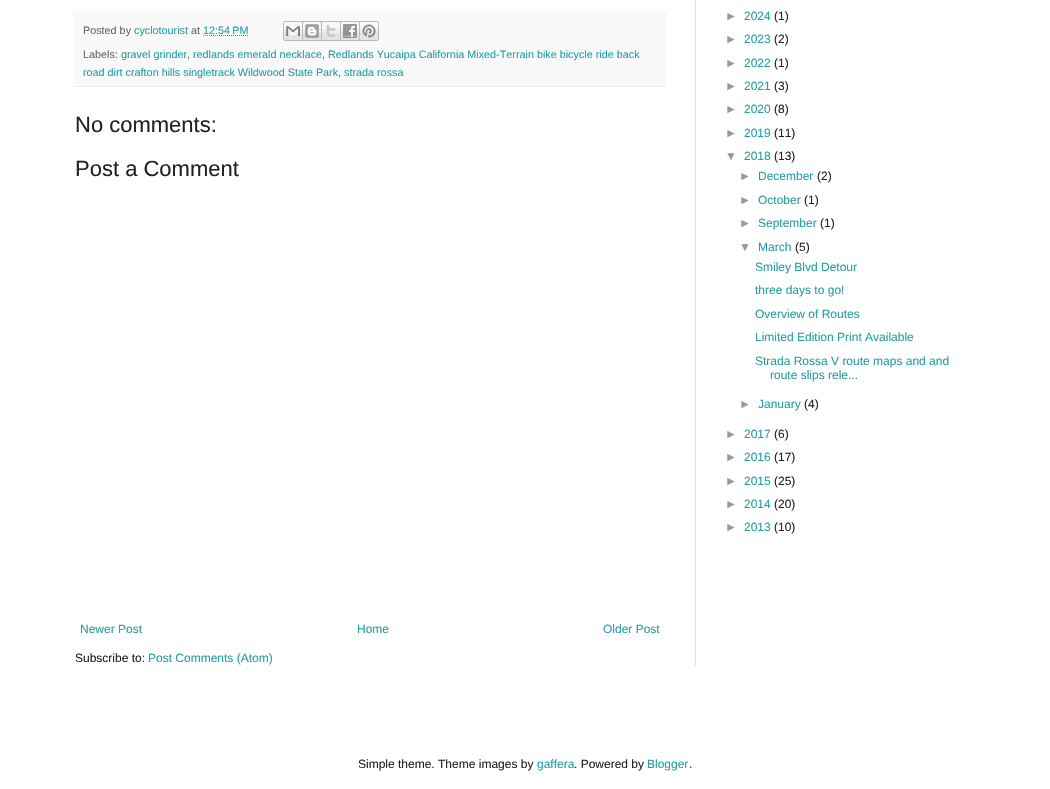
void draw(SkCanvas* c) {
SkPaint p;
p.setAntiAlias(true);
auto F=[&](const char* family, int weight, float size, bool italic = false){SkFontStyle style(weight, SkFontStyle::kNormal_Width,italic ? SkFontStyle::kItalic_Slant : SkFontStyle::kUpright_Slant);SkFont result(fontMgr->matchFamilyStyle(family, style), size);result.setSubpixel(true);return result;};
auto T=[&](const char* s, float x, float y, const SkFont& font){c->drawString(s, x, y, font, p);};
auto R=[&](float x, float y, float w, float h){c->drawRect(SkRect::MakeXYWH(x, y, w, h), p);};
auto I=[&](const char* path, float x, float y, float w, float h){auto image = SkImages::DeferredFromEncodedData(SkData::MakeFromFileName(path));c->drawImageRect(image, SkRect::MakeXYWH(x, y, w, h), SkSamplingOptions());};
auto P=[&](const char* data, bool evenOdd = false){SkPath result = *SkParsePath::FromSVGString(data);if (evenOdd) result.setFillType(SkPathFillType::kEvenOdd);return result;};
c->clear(0xffffffff);
p.setColor(0xffdddddd);
R(695,0,1,666);
p.setColor(0xfff9f9f9);
R(73,11,594,75);
p.setColor(0xffeeeeee);
R(73,86,594,1);
auto f1 = F("Liberation Sans",400,10.8);
p.setColor(0xff666666);
T("Posted by",83,34,f1);
p.setColor(0xff249fa3);
T("cyclotourist",134,34,f1);
p.setColor(0xff666666);
T("at",191,34,f1);
p.setColor(0xff249fa3);
T("12:54 PM",203,34,f1);
p.setStroke(true);
p.setStrokeWidth(1);
p.setPathEffect(SkDashPathEffect::Make({{1,1}}, 0));
c->drawPath(P("M203 35.5h45.5"),p);
p.setPathEffect(nullptr);
I("1.png",283,21,20,20);
I("2.png",303,21,19,20);
I("3.png",322,21,19,20);
I("4.png",341,21,19,20);
I("5.png",360,21,19,20);
p.setStroke(false);
p.setColor(0xff666666);
T("Labels:",83,58,f1);
p.setColor(0xff249fa3);
T("gravel grinder",121,58,f1);
p.setColor(0xff666666);
T(",",187,58,f1);
p.setColor(0xff249fa3);
T("redlands emerald necklace",193,58,f1);
p.setColor(0xff666666);
T(",",322,58,f1);
p.setColor(0xff249fa3);
T("Redlands Yucaipa California Mixed-Terrain bike bicycle ride back",328,58,f1);
T("road dirt crafton hills singletrack Wildwood State Park",83,76,f1);
p.setColor(0xff666666);
T(",",338,76,f1);
p.setColor(0xff249fa3);
T("strada rossa",344,76,f1);
auto f2 = F("Liberation Sans",400,22);
p.setColor(0xff222222);
T("No comments:",75,132,f2);
T("Post a Comment",75,176,f2);
auto f3 = F("Liberation Sans",400,12);
p.setColor(0xff249fa3);
T("Newer Post",80,633,f3);
T("Home",357,633,f3);
T("Older Post",603,633,f3);
p.setColor(0xff222222);
T("Subscribe to:",75,662,f3);
p.setColor(0xff249fa3);
T("Post Comments (Atom)",148,662,f3);
p.setColor(0xff999999);
T("►",725,20,f3);
p.setColor(0xff249fa3);
T("2024",744,20,f3);
p.setColor(0xff222222);
T("(1)",774,20,f3);
p.setColor(0xff999999);
T("►",725,43,f3);
p.setColor(0xff249fa3);
T("2023",744,43,f3);
p.setColor(0xff222222);
T("(2)",774,43,f3);
p.setColor(0xff999999);
T("►",725,67,f3);
p.setColor(0xff249fa3);
T("2022",744,67,f3);
p.setColor(0xff222222);
T("(1)",774,67,f3);
p.setColor(0xff999999);
T("►",725,90,f3);
p.setColor(0xff249fa3);
T("2021",744,90,f3);
p.setColor(0xff222222);
T("(3)",774,90,f3);
p.setColor(0xff999999);
T("►",725,113,f3);
p.setColor(0xff249fa3);
T("2020",744,113,f3);
p.setColor(0xff222222);
T("(8)",774,113,f3);
p.setColor(0xff999999);
T("►",725,137,f3);
p.setColor(0xff249fa3);
T("2019",744,137,f3);
p.setColor(0xff222222);
T("(11)",774,137,f3);
p.setColor(0xff999999);
T("▼",725,160,f3);
p.setColor(0xff249fa3);
T("2018",744,160,f3);
p.setColor(0xff222222);
T("(13)",774,160,f3);
p.setColor(0xff999999);
T("►",739,180,f3);
p.setColor(0xff249fa3);
T("December",758,180,f3);
p.setColor(0xff222222);
T("(2)",817,180,f3);
p.setColor(0xff999999);
T("►",739,204,f3);
p.setColor(0xff249fa3);
T("October",758,204,f3);
p.setColor(0xff222222);
T("(1)",804,204,f3);
p.setColor(0xff999999);
T("►",739,227,f3);
p.setColor(0xff249fa3);
T("September",758,227,f3);
p.setColor(0xff222222);
T("(1)",820,227,f3);
p.setColor(0xff999999);
T("▼",739,251,f3);
p.setColor(0xff249fa3);
T("March",758,251,f3);
p.setColor(0xff222222);
T("(5)",795,251,f3);
p.setColor(0xff249fa3);
T("Smiley Blvd Detour",755,271,f3);
T("three days to go!",755,294,f3);
T("Overview of Routes",755,318,f3);
T("Limited Edition Print Available",755,341,f3);
T("Strada Rossa V route maps and and",755,365,f3);
T("route slips rele...",770,379,f3);
p.setColor(0xff999999);
T("►",739,408,f3);
p.setColor(0xff249fa3);
T("January",758,408,f3);
p.setColor(0xff222222);
T("(4)",804,408,f3);
p.setColor(0xff999999);
T("►",725,438,f3);
p.setColor(0xff249fa3);
T("2017",744,438,f3);
p.setColor(0xff222222);
T("(6)",774,438,f3);
p.setColor(0xff999999);
T("►",725,461,f3);
p.setColor(0xff249fa3);
T("2016",744,461,f3);
p.setColor(0xff222222);
T("(17)",774,461,f3);
p.setColor(0xff999999);
T("►",725,485,f3);
p.setColor(0xff249fa3);
T("2015",744,485,f3);
p.setColor(0xff222222);
T("(25)",774,485,f3);
p.setColor(0xff999999);
T("►",725,508,f3);
p.setColor(0xff249fa3);
T("2014",744,508,f3);
p.setColor(0xff222222);
T("(20)",774,508,f3);
p.setColor(0xff999999);
T("►",725,531,f3);
p.setColor(0xff249fa3);
T("2013",744,531,f3);
p.setColor(0xff222222);
T("(10)",774,531,f3);
T("Simple theme. Theme images by",358,768,f3);
p.setColor(0xff249fa3);
T("gaffera",537,768,f3);
p.setColor(0xff222222);
T(". Powered by",574,768,f3);
p.setColor(0xff249fa3);
T("Blogger",647,768,f3);
p.setColor(0xff222222);
T(".",689,768,f3);
}
